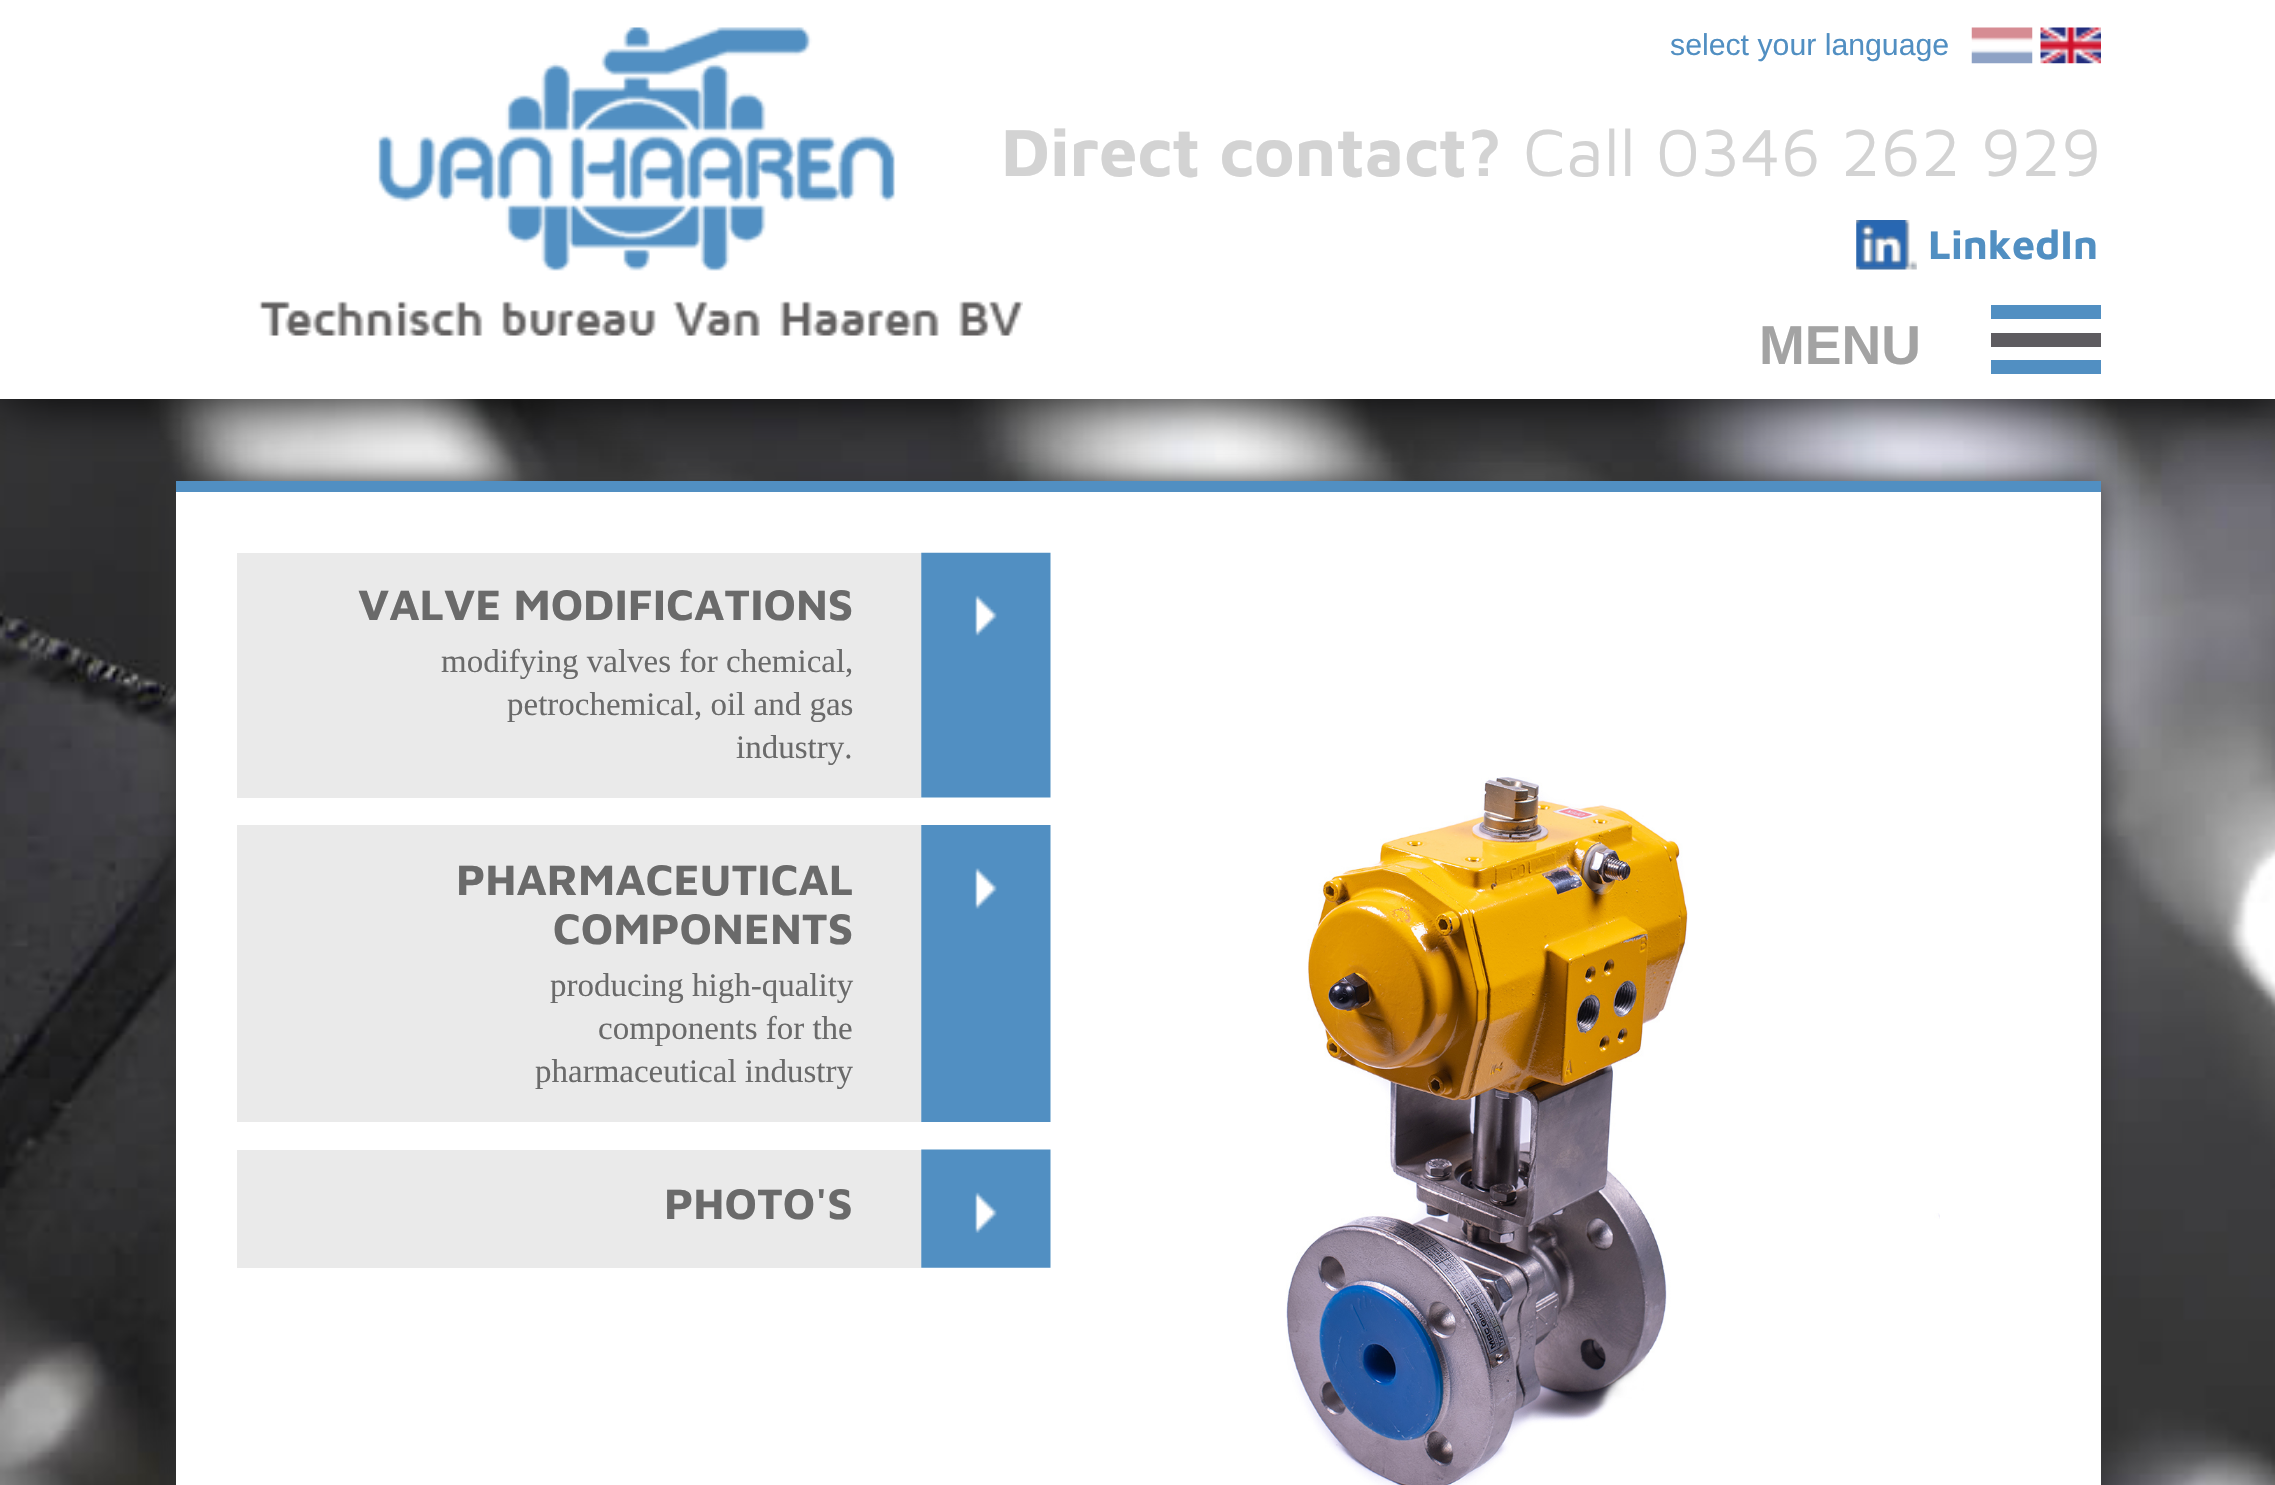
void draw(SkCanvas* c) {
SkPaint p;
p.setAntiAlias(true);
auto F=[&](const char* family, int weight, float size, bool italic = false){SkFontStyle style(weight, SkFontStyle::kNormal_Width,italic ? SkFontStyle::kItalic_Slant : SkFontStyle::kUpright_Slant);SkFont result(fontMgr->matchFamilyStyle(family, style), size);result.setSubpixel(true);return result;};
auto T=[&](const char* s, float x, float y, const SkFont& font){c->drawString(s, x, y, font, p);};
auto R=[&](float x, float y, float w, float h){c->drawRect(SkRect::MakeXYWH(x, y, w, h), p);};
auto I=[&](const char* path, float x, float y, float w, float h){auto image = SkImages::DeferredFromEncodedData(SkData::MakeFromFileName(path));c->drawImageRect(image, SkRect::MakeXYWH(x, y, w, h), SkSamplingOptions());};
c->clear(0xffffffff);
I("1.png",0,399,2275,1086);
p.setColor(0xff000000);
p.setMaskFilter(SkMaskFilter::MakeBlur(kNormal_SkBlurStyle, 27.5));
c->drawRect(SkRect::MakeXYWH(0,0,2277,399),p);
p.setMaskFilter(nullptr);
p.setColor(0xffffffff);
R(0,0,2275,399);
I("2.png",258,27,765,309);
auto f1 = F("Liberation Sans",400,30.25);
p.setColor(0xff518fc2);
T("select your language",1670,55,f1);
I("3.png",1971,27,62,37);
I("4.png",2040,27,61,37);
auto f2 = F("Maven Pro",700,68.75);
p.setColor(0xffd3d3d3);
T("Direct contact?",1001,176,f2);
auto f3 = F("Maven Pro",400,68.75);
T("Call 0346 262 929",1523,176,f3);
I("5.png",1856,220,61,50);
auto f4 = F("Maven Pro",700,41.25);
p.setColor(0xff518fc2);
T("LinkedIn",1928,259,f4);
auto f5 = F("Liberation Sans",700,55);
p.setColor(0xffa3a3a3);
T("MENU",1759,364,f5);
p.setColor(0xff518fc2);
R(1991,305,110,14);
p.setColor(0xff5e5c60);
R(1991,333,110,14);
p.setColor(0xff518fc2);
R(1991,360,110,14);
p.setColor(0xff333333);
p.setMaskFilter(SkMaskFilter::MakeBlur(kNormal_SkBlurStyle, 14));
c->drawRect(SkRect::MakeXYWH(176,481,1925,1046),p);
p.setMaskFilter(nullptr);
p.setColor(0xffffffff);
R(176,492,1925,993);
p.setColor(0xff518fc2);
R(176,481,1925,11);
p.setColor(0xffeaeaea);
R(237,553,684,245);
auto f6 = F("Maven Pro",700,44);
p.setColor(0xff6a6a6a);
T("VALVE MODIFICATIONS",358,620,f6);
I("6.png",921,552,130,246);
auto f7 = F("Liberation Serif",400,33);
T("modifying valves for chemical,",441,672,f7);
T("petrochemical, oil and gas",507,715,f7);
T("industry.",736,758,f7);
p.setColor(0xffeaeaea);
R(237,825,684,297);
p.setColor(0xff6a6a6a);
T("PHARMACEUTICAL",456,895,f6);
T("COMPONENTS",553,944,f6);
I("7.png",921,825,130,297);
T("producing high-quality",550,996,f7);
T("components for the",598,1039,f7);
T("pharmaceutical industry",535,1082,f7);
p.setColor(0xffeaeaea);
R(237,1150,684,118);
p.setColor(0xff6a6a6a);
T("PHOTO'S",664,1219,f6);
I("8.png",921,1149,130,119);
I("9.png",1286,777,654,708);
}
